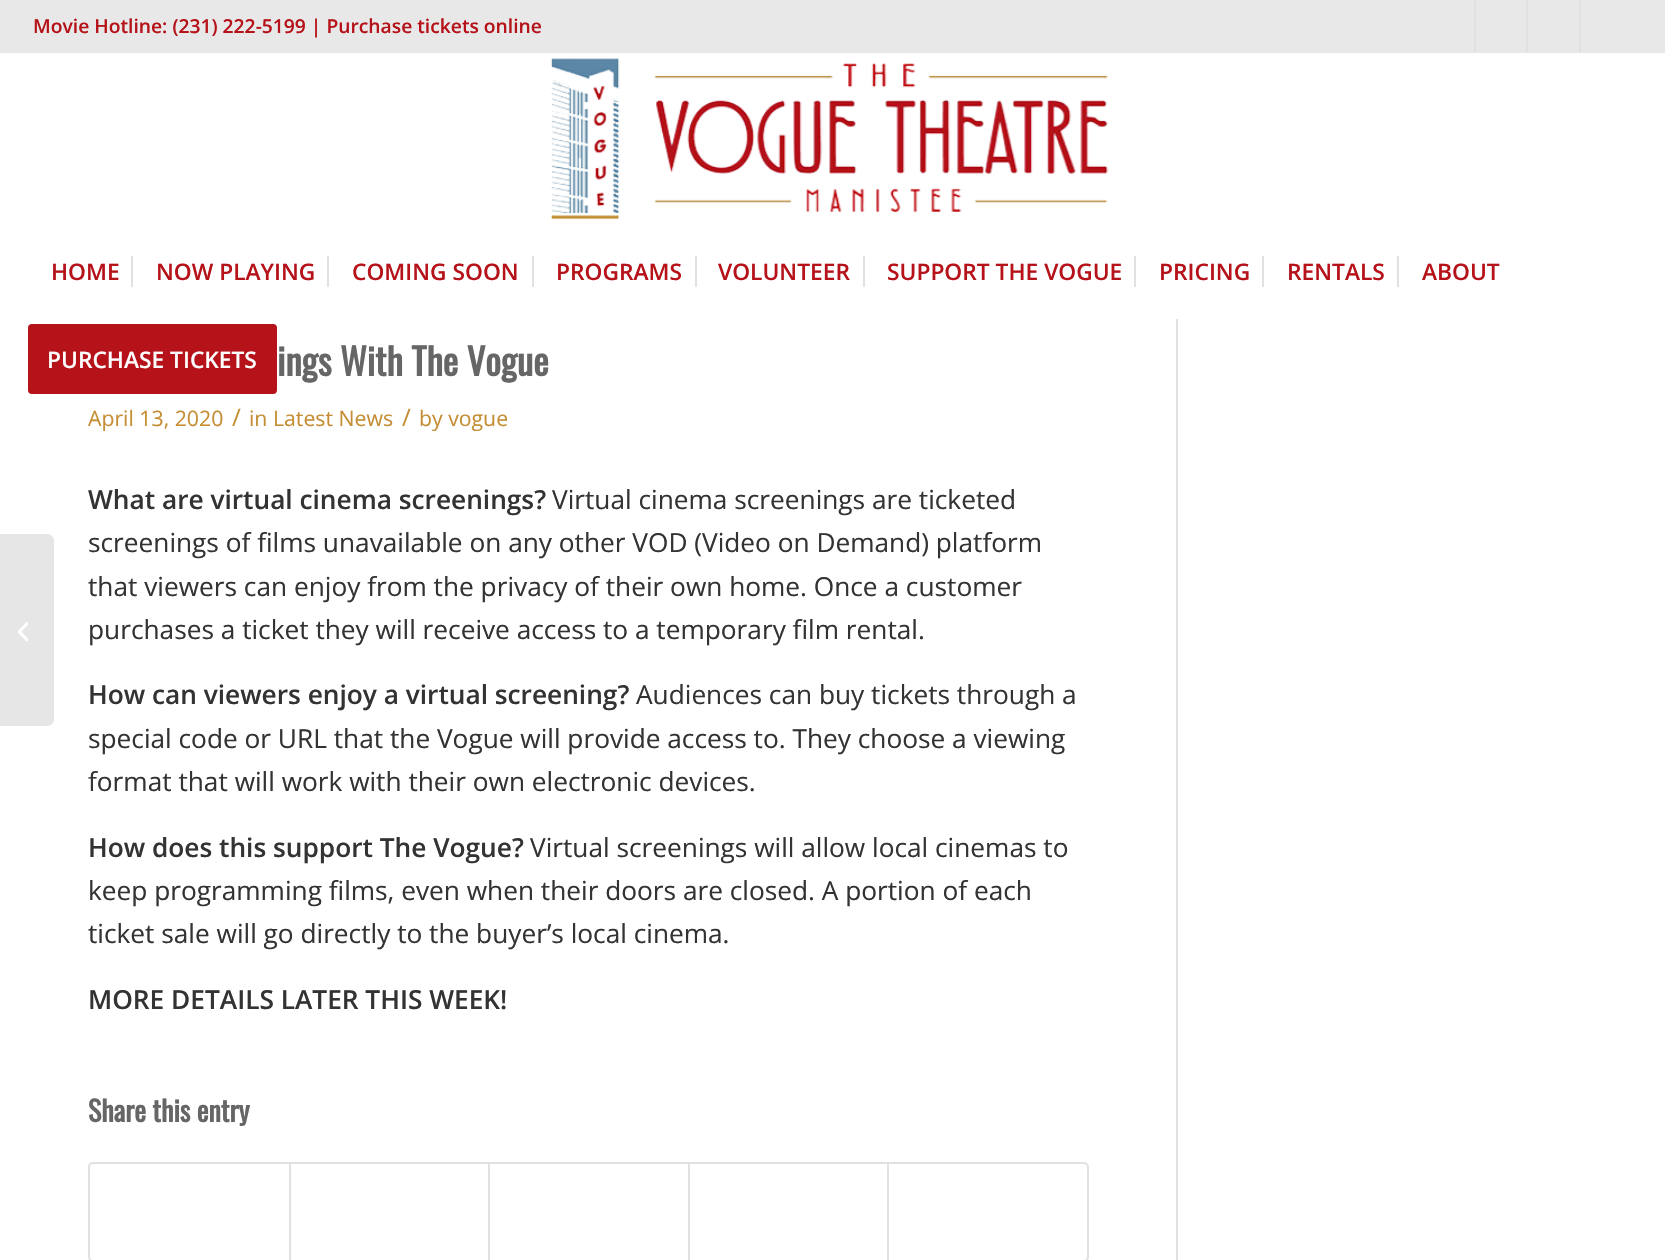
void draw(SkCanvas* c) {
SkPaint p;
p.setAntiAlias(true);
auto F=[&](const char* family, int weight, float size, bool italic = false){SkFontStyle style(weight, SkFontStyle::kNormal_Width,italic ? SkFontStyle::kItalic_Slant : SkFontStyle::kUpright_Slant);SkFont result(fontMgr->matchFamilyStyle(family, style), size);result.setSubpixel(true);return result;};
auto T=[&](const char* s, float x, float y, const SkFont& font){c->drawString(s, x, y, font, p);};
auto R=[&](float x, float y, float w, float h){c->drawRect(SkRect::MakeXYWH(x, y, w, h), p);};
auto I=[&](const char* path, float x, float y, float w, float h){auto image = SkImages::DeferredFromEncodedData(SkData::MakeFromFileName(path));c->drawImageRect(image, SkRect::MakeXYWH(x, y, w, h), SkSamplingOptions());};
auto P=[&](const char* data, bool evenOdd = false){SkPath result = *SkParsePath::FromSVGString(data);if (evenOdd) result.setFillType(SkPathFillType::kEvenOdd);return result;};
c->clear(0xffffffff);
p.setColor(0xffe8e8e8);
R(0,0,1665,53);
auto f1 = F("Open Sans",600,19.25);
p.setColor(0xffb6121a);
T("Movie Hotline: (231) 222-5199 | Purchase tickets online",33,33,f1);
p.setColor(0xffe1e1e1);
R(1474,0,2,53);
R(1526,0,2,53);
R(1579,0,2,53);
I("1.png",550,58,559,162);
auto f2 = F("Open Sans",600,22.75);
p.setColor(0xffb6121a);
T("HOME",51,280,f2);
T("NOW PLAYING",156,280,f2);
p.setColor(0xffe1e1e1);
R(131,256,2,31);
p.setColor(0xffb6121a);
T("COMING SOON",352,280,f2);
p.setColor(0xffe1e1e1);
R(327,256,2,31);
p.setColor(0xffb6121a);
T("PROGRAMS",556,280,f2);
p.setColor(0xffe1e1e1);
R(532,256,2,31);
p.setColor(0xffb6121a);
T("VOLUNTEER",718,280,f2);
p.setColor(0xffe1e1e1);
R(695,256,2,31);
p.setColor(0xffb6121a);
T("SUPPORT THE VOGUE",887,280,f2);
p.setColor(0xffe1e1e1);
R(863,256,2,31);
p.setColor(0xffb6121a);
T("PRICING",1159,280,f2);
p.setColor(0xffe1e1e1);
R(1134,256,2,31);
p.setColor(0xffb6121a);
T("RENTALS",1287,280,f2);
p.setColor(0xffe1e1e1);
R(1262,256,2,31);
p.setColor(0xffb6121a);
T("ABOUT",1422,280,f2);
p.setColor(0xffe1e1e1);
R(1397,256,2,31);
p.setColor(0xffb6121a);
c->drawRoundRect(SkRect::MakeXYWH(30,326,245,66),2,2,p);
p.setStroke(true);
p.setStrokeWidth(4);
c->drawRoundRect(SkRect::MakeXYWH(30,326,245,66),2,2,p);
p.setStroke(false);
p.setColor(0xffffffff);
T("PURCHASE TICKETS",47,368,f2);
p.setColor(0xffe6e6e6);
c->drawPath(P("M0 534h47c4 0 7 3 7 7v178c0 4-3 7-7 7h-47z"),p);
I("2.png",18,622,10,20);
p.setColor(0xffe1e1e1);
R(1176,319,2,941);
auto f3 = F("Oswald",700,36.75);
p.setColor(0xff666666);
T("ings With The Vogue",277,376,f3);
auto f4 = F("Open Sans",400,21.25);
p.setColor(0xffc58d34);
T("April 13, 2020",88,426,f4);
auto f5 = F("Open Sans",400,24);
T("/",232,426,f5);
T("in Latest News",249,426,f4);
T("/",402,426,f5);
T("by vogue",419,426,f4);
auto f6 = F("Open Sans",600,26.25);
p.setColor(0xff333333);
T("What are virtual cinema screenings?",88,509,f6);
auto f7 = F("Open Sans",400,26.25);
T("Virtual cinema screenings are ticketed",552,509,f7);
T("screenings of films unavailable on any other VOD (Video on Demand) platform",88,552,f7);
T("that viewers can enjoy from the privacy of their own home. Once a customer",88,596,f7);
T("purchases a ticket they will receive access to a temporary film rental.",88,639,f7);
T("How can viewers enjoy a virtual screening?",88,704,f6);
T("Audiences can buy tickets through a",636,704,f7);
T("special code or URL that the Vogue will provide access to. They choose a viewing",88,748,f7);
T("format that will work with their own electronic devices.",88,791,f7);
T("How does this support The Vogue?",88,857,f6);
T("Virtual screenings will allow local cinemas to",530,857,f7);
T("keep programming films, even when their doors are closed. A portion of each",88,900,f7);
T("ticket sale will go directly to the buyer’s local cinema.",88,943,f7);
T("MORE DETAILS LATER THIS WEEK!",88,1009,f6);
auto f8 = F("Oswald",700,28);
p.setColor(0xff666666);
T("Share this entry",88,1122,f8);
p.setStroke(true);
p.setStrokeWidth(2);
p.setColor(0xffe1e1e1);
c->drawRoundRect(SkRect::MakeXYWH(89,1163,999,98),4,4,p);
p.setStroke(false);
R(289,1164,2,96);
R(488,1164,2,96);
R(688,1164,2,96);
R(887,1164,2,96);
}
